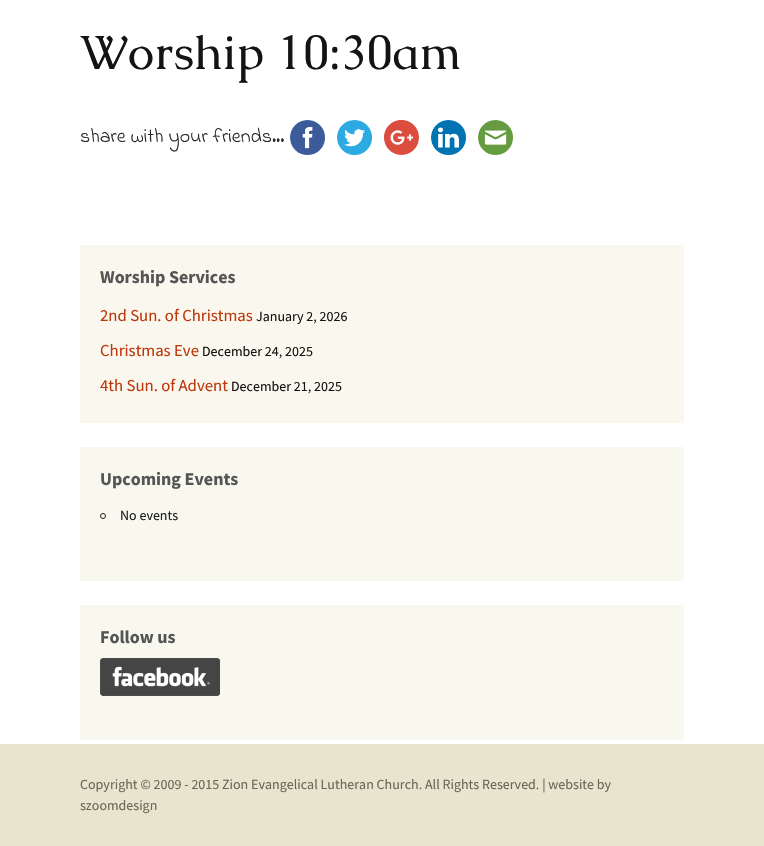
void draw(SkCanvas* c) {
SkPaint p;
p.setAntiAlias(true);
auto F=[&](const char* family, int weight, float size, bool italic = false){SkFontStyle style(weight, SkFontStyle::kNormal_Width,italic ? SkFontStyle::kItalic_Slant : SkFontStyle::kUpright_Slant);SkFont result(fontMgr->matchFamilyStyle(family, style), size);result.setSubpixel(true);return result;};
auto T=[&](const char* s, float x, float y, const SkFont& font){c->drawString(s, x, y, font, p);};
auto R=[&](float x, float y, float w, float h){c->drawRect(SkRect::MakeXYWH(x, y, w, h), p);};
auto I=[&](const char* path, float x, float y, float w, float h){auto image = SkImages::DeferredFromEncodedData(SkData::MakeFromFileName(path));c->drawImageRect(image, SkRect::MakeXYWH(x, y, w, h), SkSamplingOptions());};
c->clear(0xffffffff);
auto f1 = F("Caudex",400,48);
p.setColor(0xff141412);
T("Worship 10:30am",80,69,f1);
auto f2 = F("Indie Flower",400,20);
p.setColor(0xff272727);
T("share with your friends...",80,142,f2);
I("1.png",290,120,35,35);
I("2.png",337,120,35,35);
I("3.png",384,120,35,35);
I("4.png",431,120,35,35);
I("5.png",478,120,35,35);
p.setColor(0xfffaf8ee);
R(80,245,604,178);
auto f3 = F("Source Sans Pro",700,18);
p.setColor(0xff555555);
T("Worship Services",100,283,f3);
auto f4 = F("Source Sans Pro",400,16.75);
p.setColor(0xffbc360a);
T("2nd Sun. of Christmas",100,321,f4);
auto f5 = F("Source Sans Pro",400,14);
p.setColor(0xff141412);
T("January 2, 2026",256,321,f5);
p.setColor(0xffbc360a);
T("Christmas Eve",100,356,f4);
p.setColor(0xff141412);
T("December 24, 2025",202,356,f5);
p.setColor(0xffbc360a);
T("4th Sun. of Advent",100,391,f4);
p.setColor(0xff141412);
T("December 21, 2025",231,391,f5);
p.setColor(0xfff9f8ee);
R(80,447,604,134);
p.setColor(0xff555555);
T("Upcoming Events",100,485,f3);
p.setStroke(true);
p.setStrokeWidth(1);
p.setColor(0xff212121);
c->drawCircle(103,516,2.5,p);
p.setStroke(false);
T("No events",120,520,f5);
p.setColor(0xfff9f8ee);
R(80,605,604,135);
p.setColor(0xff555555);
T("Follow us",100,643,f3);
I("6.png",100,658,120,38);
p.setColor(0xffe8e5ce);
R(0,744,764,102);
p.setColor(0xff686758);
T("Copyright © 2009 - 2015 Zion Evangelical Lutheran Church. All Rights Reserved. | website by",80,789,f5);
T("szoomdesign",80,810,f5);
}
